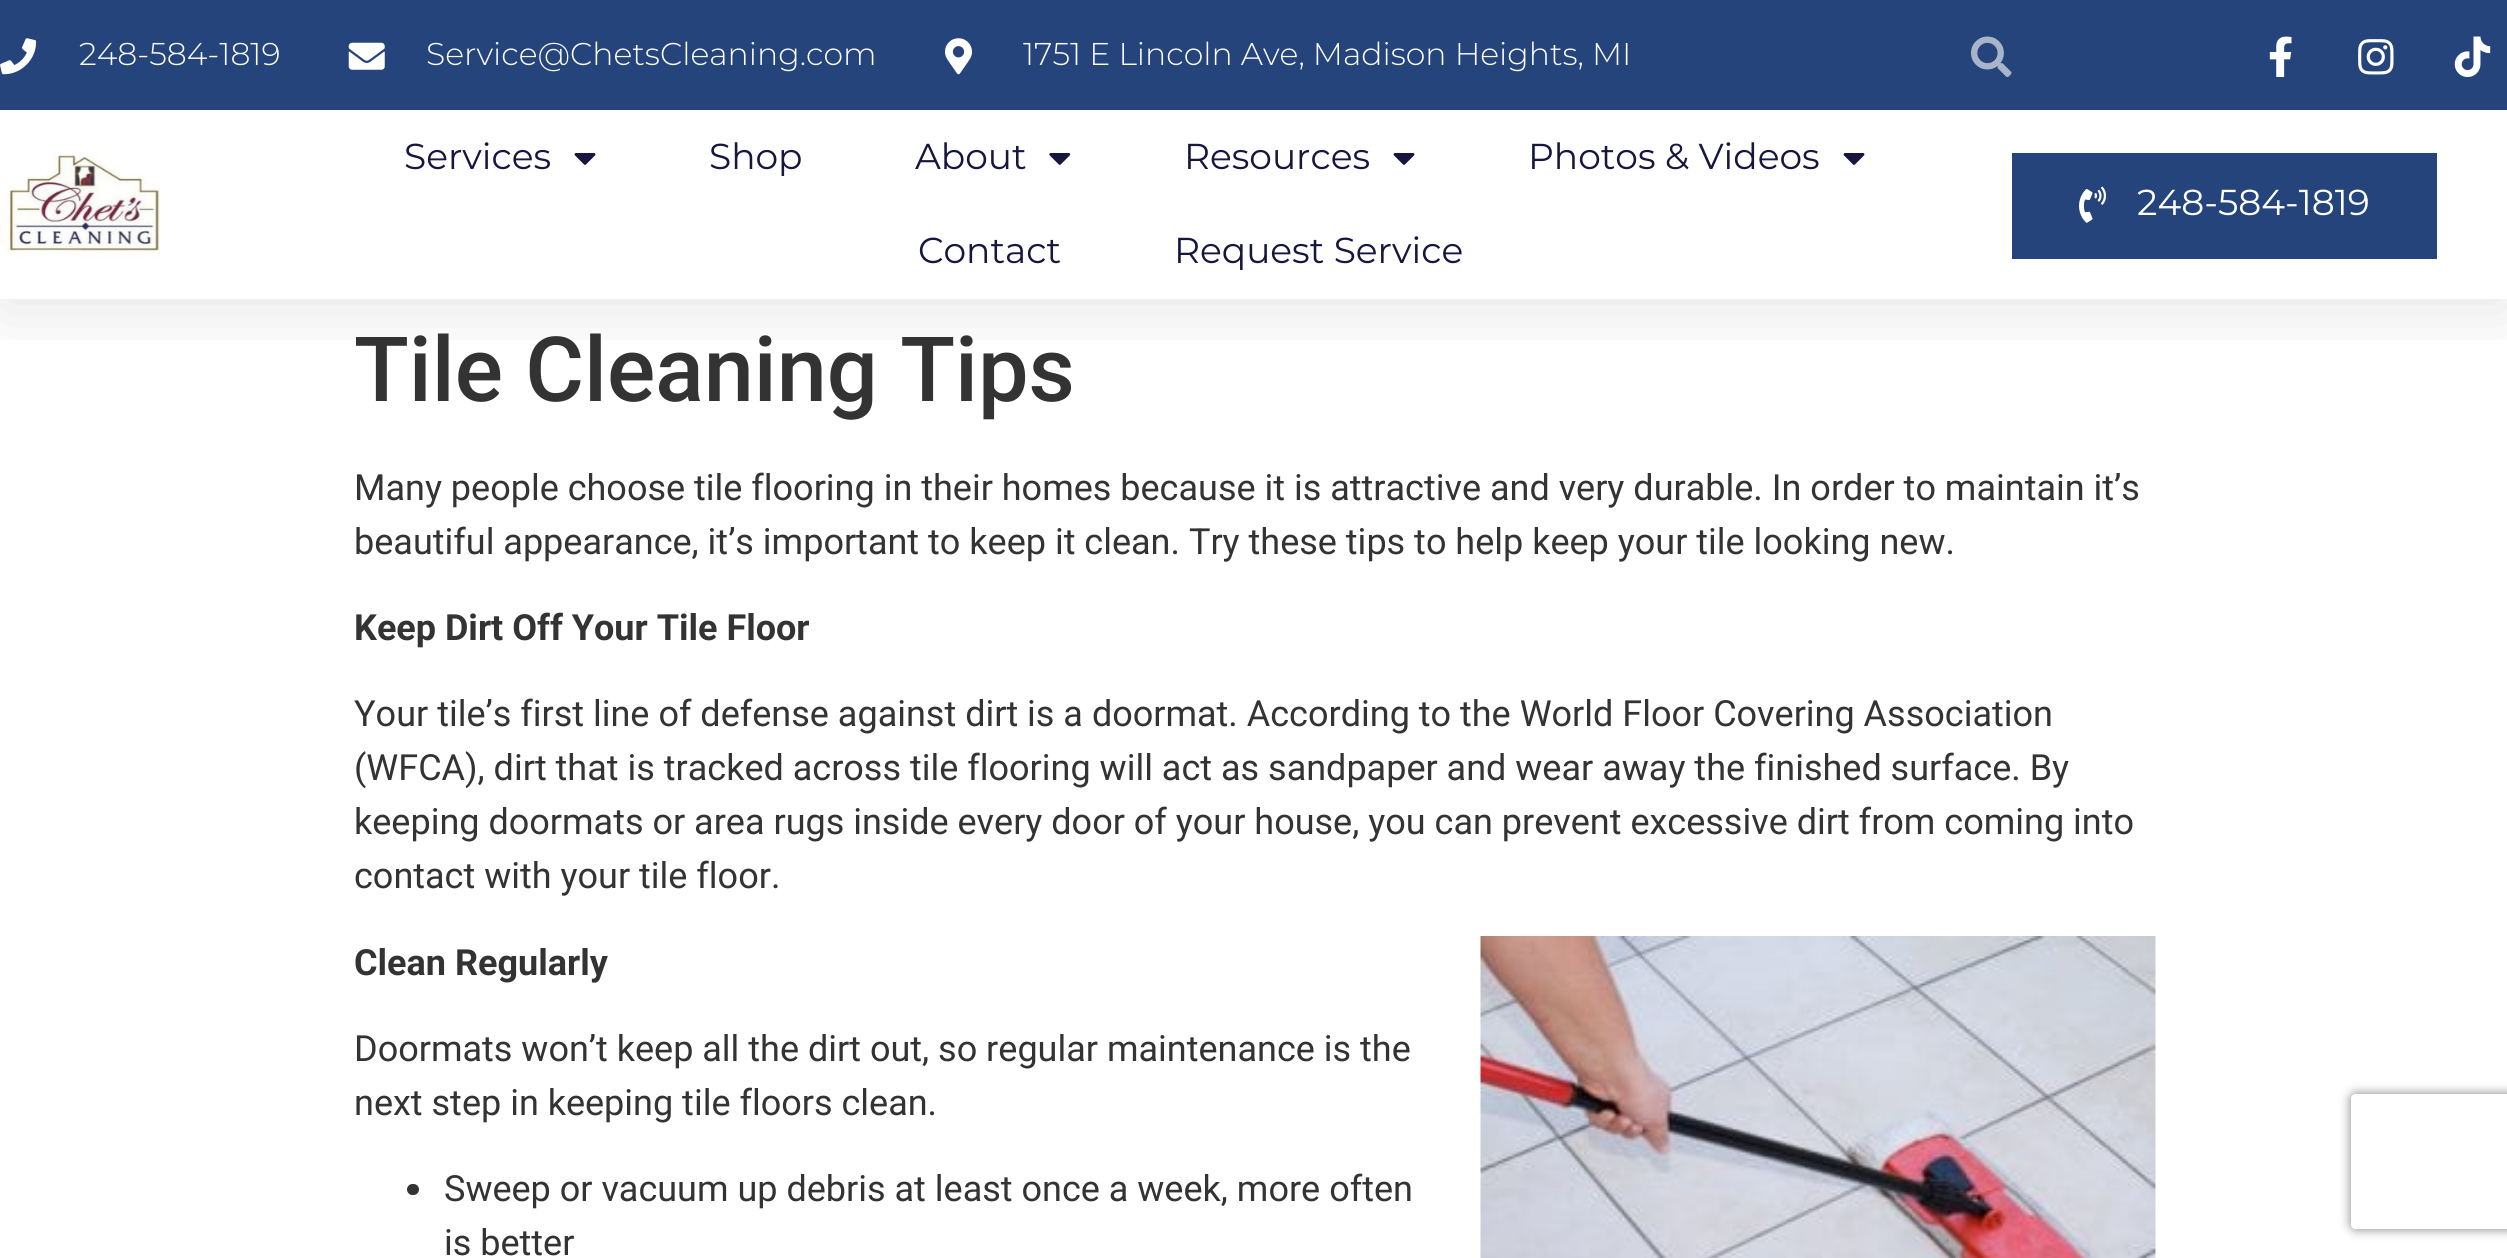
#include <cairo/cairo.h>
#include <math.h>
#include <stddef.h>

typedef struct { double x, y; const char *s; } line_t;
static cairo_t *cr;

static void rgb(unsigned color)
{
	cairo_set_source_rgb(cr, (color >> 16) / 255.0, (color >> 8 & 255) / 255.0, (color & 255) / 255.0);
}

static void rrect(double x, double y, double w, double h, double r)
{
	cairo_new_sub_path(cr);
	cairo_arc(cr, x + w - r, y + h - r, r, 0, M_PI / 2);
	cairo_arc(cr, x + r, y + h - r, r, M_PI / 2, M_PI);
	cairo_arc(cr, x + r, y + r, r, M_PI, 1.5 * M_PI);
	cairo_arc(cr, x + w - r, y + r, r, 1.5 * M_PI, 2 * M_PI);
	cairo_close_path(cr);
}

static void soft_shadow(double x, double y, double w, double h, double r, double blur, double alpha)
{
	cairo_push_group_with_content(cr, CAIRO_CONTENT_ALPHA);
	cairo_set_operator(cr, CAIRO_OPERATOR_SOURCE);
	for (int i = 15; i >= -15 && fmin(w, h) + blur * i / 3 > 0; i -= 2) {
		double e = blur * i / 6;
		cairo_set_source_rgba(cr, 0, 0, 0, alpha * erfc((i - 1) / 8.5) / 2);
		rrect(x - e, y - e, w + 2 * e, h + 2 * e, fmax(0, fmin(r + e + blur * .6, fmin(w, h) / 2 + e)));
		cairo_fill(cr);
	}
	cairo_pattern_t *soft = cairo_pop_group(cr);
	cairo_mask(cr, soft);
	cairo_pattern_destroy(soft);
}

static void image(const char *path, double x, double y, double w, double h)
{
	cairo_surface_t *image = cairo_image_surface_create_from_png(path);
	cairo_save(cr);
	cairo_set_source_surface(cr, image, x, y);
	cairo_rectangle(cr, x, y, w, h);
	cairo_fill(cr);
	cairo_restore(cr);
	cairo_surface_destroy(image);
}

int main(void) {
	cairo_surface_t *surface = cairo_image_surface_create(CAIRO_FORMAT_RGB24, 2507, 1258);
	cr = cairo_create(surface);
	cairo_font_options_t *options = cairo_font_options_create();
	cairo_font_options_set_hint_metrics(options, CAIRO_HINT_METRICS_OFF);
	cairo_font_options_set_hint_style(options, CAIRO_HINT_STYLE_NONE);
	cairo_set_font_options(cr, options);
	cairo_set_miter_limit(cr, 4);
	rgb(0xffffff);
	cairo_paint(cr);
	cairo_save(cr);
	cairo_rectangle(cr, 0, 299, 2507, 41);
	cairo_clip(cr);
	rgb(0x000000);
	soft_shadow(0, 11, 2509, 300, 0, 34, 0.1);
	cairo_restore(cr);
	rgb(0x24447b);
	cairo_rectangle(cr, 0, 0, 2507, 110);
	cairo_fill(cr);
	image("img/1.png", 0, 38, 37, 37);
	image("img/2.png", 348, 42, 37, 28);
	image("img/3.png", 945, 38, 27, 37);
	image("img/4.png", 1971, 36, 41, 41);
	image("img/5.png", 2269, 36, 23, 41);
	image("img/6.png", 2358, 39, 36, 36);
	image("img/7.png", 2454, 36, 37, 41);
	image("img/8.png", 0, 151, 160, 107);
	image("img/9.png", 574, 153, 22, 12);
	image("img/10.png", 1049, 153, 22, 12);
	image("img/9.png", 1393, 153, 22, 12);
	image("img/9.png", 1843, 153, 22, 12);
	cairo_rectangle(cr, 2012, 153, 425, 106);
	cairo_fill(cr);
	image("img/11.png", 2079, 186, 28, 37);
	image("img/12.png", 1480, 936, 676, 322);
	rgb(0x333333);
	rrect(407, 1184, 12, 11, 5.5);
	cairo_fill(cr);
	cairo_save(cr);
	cairo_set_fill_rule(cr, CAIRO_FILL_RULE_EVEN_ODD);
	cairo_new_path(cr);
	cairo_move_to(cr, 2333, 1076);
	cairo_line_to(cr, 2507, 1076);
	cairo_line_to(cr, 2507, 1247);
	cairo_line_to(cr, 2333, 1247);
	cairo_close_path(cr);
	cairo_move_to(cr, 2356, 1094);
	cairo_line_to(cr, 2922, 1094);
	cairo_curve_to(cr, 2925, 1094, 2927, 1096, 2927, 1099);
	cairo_line_to(cr, 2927, 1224);
	cairo_curve_to(cr, 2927, 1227, 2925, 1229, 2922, 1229);
	cairo_line_to(cr, 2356, 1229);
	cairo_curve_to(cr, 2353, 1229, 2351, 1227, 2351, 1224);
	cairo_line_to(cr, 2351, 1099);
	cairo_curve_to(cr, 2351, 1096, 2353, 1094, 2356, 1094);
	cairo_close_path(cr);
	cairo_clip(cr);
	rgb(0x808080);
	soft_shadow(2351, 1094, 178, 135, 5, 5.5, 1);
	cairo_restore(cr);
	cairo_select_font_face(cr, "Montserrat Light", CAIRO_FONT_SLANT_NORMAL, CAIRO_FONT_WEIGHT_NORMAL);
	cairo_set_font_size(cr, 31.5);
	rgb(0xffffff);
	{
		static const line_t items[] = {
			{79, 65, "248-584-1819"},
			{426, 65, "Service@ChetsCleaning.com"},
			{1023, 65, "1751 E Lincoln Ave, Madison Heights, MI"},
		};
		for (size_t i = 0; i < sizeof items / sizeof *items; i++) {
			cairo_move_to(cr, items[i].x, items[i].y);
			cairo_show_text(cr, items[i].s);
		}
	}
	cairo_select_font_face(cr, "Montserrat", CAIRO_FONT_SLANT_NORMAL, CAIRO_FONT_WEIGHT_NORMAL);
	cairo_set_font_size(cr, 36);
	rgb(0x16163f);
	{
		static const line_t items[] = {
			{404, 169, "Services"},
			{709, 169, "Shop"},
			{915, 169, "About"},
			{1184, 169, "Resources"},
			{1528, 169, "Photos & Videos"},
			{918, 263, "Contact"},
			{1174, 263, "Request Service"},
		};
		for (size_t i = 0; i < sizeof items / sizeof *items; i++) {
			cairo_move_to(cr, items[i].x, items[i].y);
			cairo_show_text(cr, items[i].s);
		}
	}
	rgb(0xffffff);
	cairo_move_to(cr, 2137, 215);
	cairo_show_text(cr, "248-584-1819");
	cairo_select_font_face(cr, "Roboto Medium", CAIRO_FONT_SLANT_NORMAL, CAIRO_FONT_WEIGHT_NORMAL);
	cairo_set_font_size(cr, 90);
	rgb(0x333333);
	cairo_move_to(cr, 354, 401);
	cairo_show_text(cr, "Tile Cleaning Tips");
	cairo_select_font_face(cr, "Roboto", CAIRO_FONT_SLANT_NORMAL, CAIRO_FONT_WEIGHT_NORMAL);
	cairo_set_font_size(cr, 36);
	cairo_move_to(cr, 354, 500);
	cairo_show_text(cr, "Many people choose tile flooring in their homes because it is attractive and very durable. In order to maintain it’s");
	cairo_move_to(cr, 354, 554);
	cairo_show_text(cr, "beautiful appearance, it’s important to keep it clean. Try these tips to help keep your tile looking new.");
	cairo_select_font_face(cr, "Roboto", CAIRO_FONT_SLANT_NORMAL, CAIRO_FONT_WEIGHT_BOLD);
	cairo_move_to(cr, 354, 640);
	cairo_show_text(cr, "Keep Dirt Off Your Tile Floor");
	cairo_select_font_face(cr, "Roboto", CAIRO_FONT_SLANT_NORMAL, CAIRO_FONT_WEIGHT_NORMAL);
	{
		static const line_t items[] = {
			{354, 726, "Your tile’s first line of defense against dirt is a doormat. According to the World Floor Covering Association"},
			{354, 780, "(WFCA), dirt that is tracked across tile flooring will act as sandpaper and wear away the finished surface. By"},
			{354, 834, "keeping doormats or area rugs inside every door of your house, you can prevent excessive dirt from coming into"},
			{354, 888, "contact with your tile floor."},
		};
		for (size_t i = 0; i < sizeof items / sizeof *items; i++) {
			cairo_move_to(cr, items[i].x, items[i].y);
			cairo_show_text(cr, items[i].s);
		}
	}
	cairo_select_font_face(cr, "Roboto", CAIRO_FONT_SLANT_NORMAL, CAIRO_FONT_WEIGHT_BOLD);
	cairo_move_to(cr, 354, 975);
	cairo_show_text(cr, "Clean Regularly");
	cairo_select_font_face(cr, "Roboto", CAIRO_FONT_SLANT_NORMAL, CAIRO_FONT_WEIGHT_NORMAL);
	{
		static const line_t items[] = {
			{354, 1061, "Doormats won’t keep all the dirt out, so regular maintenance is the"},
			{354, 1115, "next step in keeping tile floors clean."},
			{444, 1201, "Sweep or vacuum up debris at least once a week, more often"},
			{444, 1255, "is better"},
		};
		for (size_t i = 0; i < sizeof items / sizeof *items; i++) {
			cairo_move_to(cr, items[i].x, items[i].y);
			cairo_show_text(cr, items[i].s);
		}
	}
	cairo_surface_write_to_png(surface, "page.png");
	cairo_font_options_destroy(options);
	cairo_destroy(cr);
	cairo_surface_destroy(surface);
	return 0;
}
